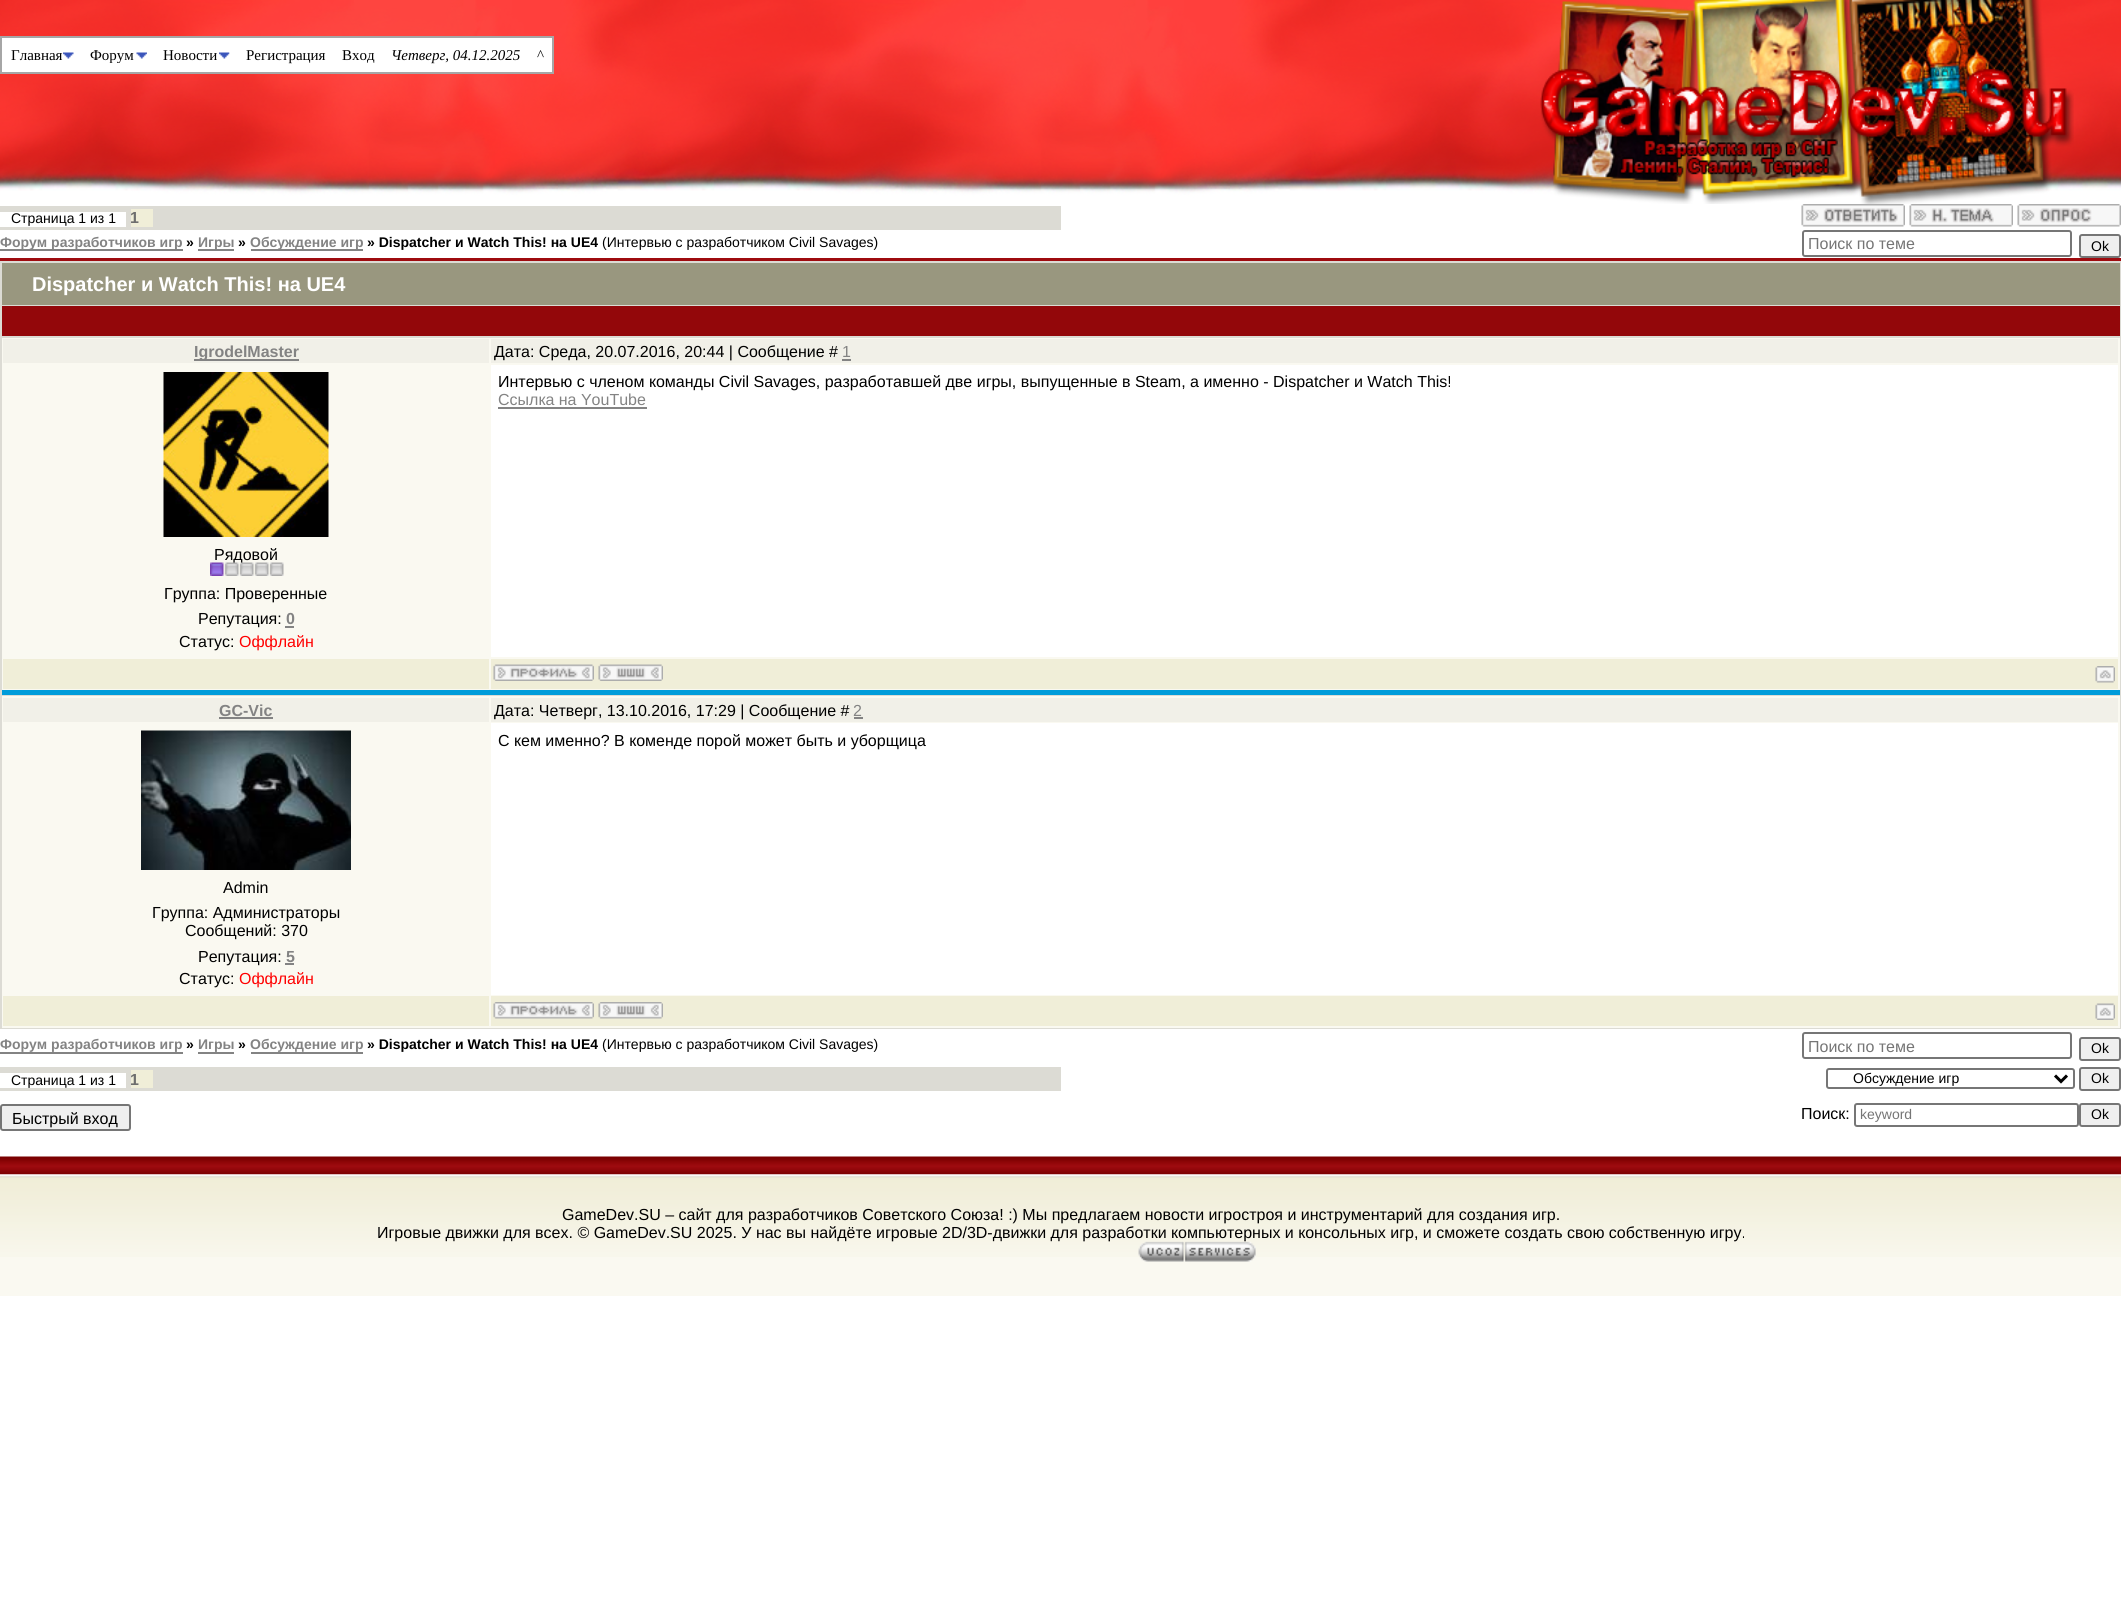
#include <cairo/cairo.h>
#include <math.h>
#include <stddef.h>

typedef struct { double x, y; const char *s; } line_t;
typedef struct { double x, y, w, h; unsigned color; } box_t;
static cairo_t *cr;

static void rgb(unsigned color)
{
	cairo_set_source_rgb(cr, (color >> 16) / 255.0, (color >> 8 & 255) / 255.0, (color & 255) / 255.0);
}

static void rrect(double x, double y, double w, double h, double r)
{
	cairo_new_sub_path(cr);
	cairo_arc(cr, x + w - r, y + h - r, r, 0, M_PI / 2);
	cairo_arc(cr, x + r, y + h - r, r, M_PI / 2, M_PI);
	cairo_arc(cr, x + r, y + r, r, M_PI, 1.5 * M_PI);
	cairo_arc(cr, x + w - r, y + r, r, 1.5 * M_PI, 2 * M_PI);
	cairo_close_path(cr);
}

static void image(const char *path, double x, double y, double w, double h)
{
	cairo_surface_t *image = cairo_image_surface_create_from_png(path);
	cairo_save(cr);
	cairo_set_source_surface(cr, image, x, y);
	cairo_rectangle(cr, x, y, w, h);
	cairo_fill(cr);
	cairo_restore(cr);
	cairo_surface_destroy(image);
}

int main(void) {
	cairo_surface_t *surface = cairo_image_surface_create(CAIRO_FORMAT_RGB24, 2121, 1603);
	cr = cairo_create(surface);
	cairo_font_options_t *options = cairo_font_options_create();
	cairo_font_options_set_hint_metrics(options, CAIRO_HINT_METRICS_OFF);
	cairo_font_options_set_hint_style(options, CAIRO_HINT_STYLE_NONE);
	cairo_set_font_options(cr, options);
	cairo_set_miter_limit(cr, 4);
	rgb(0xffffff);
	cairo_paint(cr);
	image("img/1.png", 0, 0, 2121, 204);
	rgb(0xffffff);
	cairo_rectangle(cr, 1, 37, 552, 36);
	cairo_fill_preserve(cr);
	rgb(0xa6a6a6);
	cairo_stroke(cr);
	image("img/2.png", 63, 52, 11, 7);
	image("img/3.png", 136, 52, 11, 7);
	image("img/4.png", 219, 52, 11, 7);
	image("img/5.png", 1540, 0, 534, 204);
	{
		static const box_t items[] = {
			{0, 206, 1061, 24, 0xdcdbd4},
			{0, 212, 126, 15, 0xffffff},
			{131, 209, 22, 18, 0xf0eed8},
		};
		for (size_t i = 0; i < sizeof items / sizeof *items; i++) {
			rgb(items[i].color);
			cairo_rectangle(cr, items[i].x, items[i].y, items[i].w, items[i].h);
			cairo_fill(cr);
		}
	}
	image("img/6.png", 1801, 204, 104, 23);
	image("img/7.png", 1909, 204, 104, 23);
	image("img/8.png", 2017, 204, 104, 23);
	{
		static const box_t items[] = {
			{0, 249, 183, 2, 0x838383},
			{198, 249, 36, 2, 0x838383},
			{251, 249, 112, 2, 0x838383},
		};
		for (size_t i = 0; i < sizeof items / sizeof *items; i++) {
			rgb(items[i].color);
			cairo_rectangle(cr, items[i].x, items[i].y, items[i].w, items[i].h);
			cairo_fill(cr);
		}
	}
	rrect(1803, 231, 268, 25, 2);
	rgb(0x767676);
	cairo_stroke(cr);
	rgb(0xefefef);
	rrect(2080, 235, 40, 22, 2);
	cairo_fill_preserve(cr);
	rgb(0x767676);
	cairo_stroke(cr);
	{
		static const box_t items[] = {
			{0, 261, 2121, 768, 0xdcdbd4},
			{0, 258, 2121, 3, 0x9e0b0f},
			{2, 263, 2118, 42, 0x99977f},
			{2, 306, 2118, 30, 0x93070a},
			{2, 338, 2118, 352, 0xfaf9f1},
			{2, 690, 2118, 5, 0x009cda},
			{3, 339, 486, 24, 0xf1f0e8},
			{194, 359, 105, 2, 0x838383},
			{491, 339, 1627, 24, 0xf1f0e8},
			{842, 359, 9, 2, 0x838383},
			{491, 365, 1627, 292, 0xffffff},
			{498, 407, 149, 2, 0x838383},
		};
		for (size_t i = 0; i < sizeof items / sizeof *items; i++) {
			rgb(items[i].color);
			cairo_rectangle(cr, items[i].x, items[i].y, items[i].w, items[i].h);
			cairo_fill(cr);
		}
	}
	image("img/9.png", 163, 372, 166, 165);
	{
		static const box_t items[] = {
			{285, 626, 9, 2, 0x838383},
			{3, 659, 486, 30, 0xf0eed8},
			{491, 659, 1627, 30, 0xf0eed8},
		};
		for (size_t i = 0; i < sizeof items / sizeof *items; i++) {
			rgb(items[i].color);
			cairo_rectangle(cr, items[i].x, items[i].y, items[i].w, items[i].h);
			cairo_fill(cr);
		}
	}
	image("img/11.png", 493, 664, 101, 17);
	image("img/12.png", 598, 664, 65, 17);
	image("img/13.png", 2095, 666, 20, 17);
	{
		static const box_t items[] = {
			{2, 696, 2118, 332, 0xfaf9f1},
			{3, 698, 486, 24, 0xf1f0e8},
			{219, 717, 54, 2, 0x838383},
			{491, 698, 1627, 24, 0xf1f0e8},
			{854, 717, 9, 2, 0x838383},
			{491, 723, 1627, 272, 0xffffff},
		};
		for (size_t i = 0; i < sizeof items / sizeof *items; i++) {
			rgb(items[i].color);
			cairo_rectangle(cr, items[i].x, items[i].y, items[i].w, items[i].h);
			cairo_fill(cr);
		}
	}
	image("img/14.png", 141, 730, 210, 140);
	{
		static const box_t items[] = {
			{285, 963, 9, 2, 0x838383},
			{3, 996, 486, 30, 0xf0eed8},
			{491, 996, 1627, 30, 0xf0eed8},
		};
		for (size_t i = 0; i < sizeof items / sizeof *items; i++) {
			rgb(items[i].color);
			cairo_rectangle(cr, items[i].x, items[i].y, items[i].w, items[i].h);
			cairo_fill(cr);
		}
	}
	image("img/15.png", 493, 1002, 101, 17);
	image("img/16.png", 598, 1002, 65, 17);
	image("img/17.png", 2095, 1003, 20, 17);
	{
		static const box_t items[] = {
			{0, 1052, 183, 2, 0x838383},
			{198, 1052, 36, 2, 0x838383},
			{251, 1052, 112, 2, 0x838383},
		};
		for (size_t i = 0; i < sizeof items / sizeof *items; i++) {
			rgb(items[i].color);
			cairo_rectangle(cr, items[i].x, items[i].y, items[i].w, items[i].h);
			cairo_fill(cr);
		}
	}
	rrect(1803, 1033, 268, 25, 2);
	rgb(0x767676);
	cairo_stroke(cr);
	rgb(0xefefef);
	rrect(2080, 1038, 40, 22, 2);
	cairo_fill_preserve(cr);
	rgb(0x767676);
	cairo_stroke(cr);
	{
		static const box_t items[] = {
			{0, 1067, 1061, 24, 0xdcdbd4},
			{0, 1073, 126, 15, 0xffffff},
			{131, 1070, 22, 18, 0xf0eed8},
		};
		for (size_t i = 0; i < sizeof items / sizeof *items; i++) {
			rgb(items[i].color);
			cairo_rectangle(cr, items[i].x, items[i].y, items[i].w, items[i].h);
			cairo_fill(cr);
		}
	}
	rrect(1827, 1069, 247, 19, 2);
	rgb(0x767676);
	cairo_stroke(cr);
	cairo_new_path(cr);
	cairo_move_to(cr, 2055, 1075.5);
	cairo_line_to(cr, 2061, 1081.5);
	cairo_line_to(cr, 2067, 1075.5);
	rgb(0x000000);
	cairo_set_line_width(cr, 3);
	cairo_stroke(cr);
	rgb(0xefefef);
	rrect(2080, 1068, 40, 22, 2);
	cairo_fill_preserve(cr);
	rgb(0x767676);
	cairo_set_line_width(cr, 2);
	cairo_stroke(cr);
	rgb(0xefefef);
	rrect(1, 1105, 129, 25, 2);
	cairo_fill_preserve(cr);
	rgb(0x767676);
	cairo_stroke(cr);
	rrect(1855, 1104, 223, 22, 2);
	cairo_stroke(cr);
	rgb(0xefefef);
	rrect(2080, 1104, 40, 22, 2);
	cairo_fill_preserve(cr);
	rgb(0x767676);
	cairo_stroke(cr);
	image("img/18.png", 0, 1156, 2121, 19);
	rgb(0xfaf9f1);
	cairo_rectangle(cr, 0, 1257, 2121, 39);
	cairo_fill(cr);
	image("img/19.png", 0, 1174, 2121, 83);
	cairo_select_font_face(cr, "Liberation Serif", CAIRO_FONT_SLANT_NORMAL, CAIRO_FONT_WEIGHT_NORMAL);
	cairo_set_font_size(cr, 15);
	rgb(0x000000);
	cairo_move_to(cr, 11, 60);
	cairo_show_text(cr, "Главная");
	cairo_save(cr);
	cairo_rectangle(cr, 90, 47, 57, 16);
	cairo_clip(cr);
	cairo_move_to(cr, 90, 60);
	cairo_show_text(cr, "Форум");
	cairo_restore(cr);
	{
		static const line_t items[] = {
			{163, 60, "Новости"},
			{246, 60, "Регистрация"},
			{342, 60, "Вход"},
		};
		for (size_t i = 0; i < sizeof items / sizeof *items; i++) {
			cairo_move_to(cr, items[i].x, items[i].y);
			cairo_show_text(cr, items[i].s);
		}
	}
	cairo_select_font_face(cr, "Liberation Serif", CAIRO_FONT_SLANT_ITALIC, CAIRO_FONT_WEIGHT_NORMAL);
	cairo_move_to(cr, 391, 60);
	cairo_show_text(cr, "Четверг, 04.12.2025");
	cairo_select_font_face(cr, "Liberation Serif", CAIRO_FONT_SLANT_NORMAL, CAIRO_FONT_WEIGHT_NORMAL);
	cairo_move_to(cr, 537, 60);
	cairo_show_text(cr, "^");
	cairo_select_font_face(cr, "Liberation Sans", CAIRO_FONT_SLANT_NORMAL, CAIRO_FONT_WEIGHT_NORMAL);
	cairo_set_font_size(cr, 14);
	cairo_move_to(cr, 11, 223);
	cairo_show_text(cr, "Страница 1 из 1");
	cairo_select_font_face(cr, "Liberation Sans", CAIRO_FONT_SLANT_NORMAL, CAIRO_FONT_WEIGHT_BOLD);
	cairo_set_font_size(cr, 16);
	rgb(0x6e6e6e);
	cairo_move_to(cr, 130, 223);
	cairo_show_text(cr, "1");
	cairo_set_font_size(cr, 14);
	rgb(0x838383);
	cairo_move_to(cr, 0, 247);
	cairo_show_text(cr, "Форум разработчиков игр");
	rgb(0x000000);
	cairo_move_to(cr, 186, 247);
	cairo_show_text(cr, "»");
	rgb(0x838383);
	cairo_move_to(cr, 198, 247);
	cairo_show_text(cr, "Игры");
	rgb(0x000000);
	cairo_move_to(cr, 238, 247);
	cairo_show_text(cr, "»");
	rgb(0x838383);
	cairo_move_to(cr, 250, 247);
	cairo_show_text(cr, "Обсуждение игр");
	rgb(0x000000);
	cairo_move_to(cr, 367, 247);
	cairo_show_text(cr, "» Dispatcher и Watch This! на UE4");
	cairo_select_font_face(cr, "Liberation Sans", CAIRO_FONT_SLANT_NORMAL, CAIRO_FONT_WEIGHT_NORMAL);
	cairo_move_to(cr, 602, 247);
	cairo_show_text(cr, "(Интервью с разработчиком Civil Savages)");
	cairo_set_font_size(cr, 16);
	rgb(0x757575);
	cairo_move_to(cr, 1808, 249);
	cairo_show_text(cr, "Поиск по теме");
	cairo_set_font_size(cr, 14);
	rgb(0x000000);
	cairo_move_to(cr, 2091, 251);
	cairo_show_text(cr, "Ok");
	cairo_select_font_face(cr, "Liberation Sans", CAIRO_FONT_SLANT_NORMAL, CAIRO_FONT_WEIGHT_BOLD);
	cairo_set_font_size(cr, 20);
	rgb(0xffffff);
	cairo_move_to(cr, 32, 291);
	cairo_show_text(cr, "Dispatcher и Watch This! на UE4");
	cairo_set_font_size(cr, 16);
	rgb(0x838383);
	cairo_move_to(cr, 194, 357);
	cairo_show_text(cr, "IgrodelMaster");
	cairo_select_font_face(cr, "Liberation Sans", CAIRO_FONT_SLANT_NORMAL, CAIRO_FONT_WEIGHT_NORMAL);
	rgb(0x000000);
	cairo_move_to(cr, 494, 357);
	cairo_show_text(cr, "Дата: Среда, 20.07.2016, 20:44 | Сообщение #");
	rgb(0x838383);
	cairo_move_to(cr, 842, 357);
	cairo_show_text(cr, "1");
	rgb(0x000000);
	cairo_move_to(cr, 498, 387);
	cairo_show_text(cr, "Интервью с членом команды Civil Savages, разработавшей две игры, выпущенные в Steam, а именно - Dispatcher и Watch This!");
	rgb(0x838383);
	cairo_move_to(cr, 498, 405);
	cairo_show_text(cr, "Ссылка на YouTube");
	rgb(0x000000);
	cairo_move_to(cr, 214, 560);
	cairo_show_text(cr, "Рядовой");
	image("img/10.png", 210, 562, 74, 14);
	cairo_move_to(cr, 164, 599);
	cairo_show_text(cr, "Группа: Проверенные");
	cairo_move_to(cr, 198, 624);
	cairo_show_text(cr, "Репутация:");
	cairo_select_font_face(cr, "Liberation Sans", CAIRO_FONT_SLANT_NORMAL, CAIRO_FONT_WEIGHT_BOLD);
	rgb(0x838383);
	cairo_move_to(cr, 286, 624);
	cairo_show_text(cr, "0");
	cairo_select_font_face(cr, "Liberation Sans", CAIRO_FONT_SLANT_NORMAL, CAIRO_FONT_WEIGHT_NORMAL);
	rgb(0x000000);
	cairo_move_to(cr, 179, 647);
	cairo_show_text(cr, "Статус:");
	rgb(0xff0000);
	cairo_move_to(cr, 239, 647);
	cairo_show_text(cr, "Оффлайн");
	cairo_select_font_face(cr, "Liberation Sans", CAIRO_FONT_SLANT_NORMAL, CAIRO_FONT_WEIGHT_BOLD);
	rgb(0x838383);
	cairo_move_to(cr, 219, 716);
	cairo_show_text(cr, "GC-Vic");
	cairo_select_font_face(cr, "Liberation Sans", CAIRO_FONT_SLANT_NORMAL, CAIRO_FONT_WEIGHT_NORMAL);
	rgb(0x000000);
	cairo_move_to(cr, 494, 716);
	cairo_show_text(cr, "Дата: Четверг, 13.10.2016, 17:29 | Сообщение #");
	rgb(0x838383);
	cairo_move_to(cr, 853, 716);
	cairo_show_text(cr, "2");
	rgb(0x000000);
	{
		static const line_t items[] = {
			{498, 746, "С кем именно? В коменде порой может быть и уборщица"},
			{223, 893, "Admin"},
			{152, 918, "Группа: Администраторы"},
			{185, 936, "Сообщений: 370"},
			{198, 962, "Репутация:"},
		};
		for (size_t i = 0; i < sizeof items / sizeof *items; i++) {
			cairo_move_to(cr, items[i].x, items[i].y);
			cairo_show_text(cr, items[i].s);
		}
	}
	cairo_select_font_face(cr, "Liberation Sans", CAIRO_FONT_SLANT_NORMAL, CAIRO_FONT_WEIGHT_BOLD);
	rgb(0x838383);
	cairo_move_to(cr, 286, 962);
	cairo_show_text(cr, "5");
	cairo_select_font_face(cr, "Liberation Sans", CAIRO_FONT_SLANT_NORMAL, CAIRO_FONT_WEIGHT_NORMAL);
	rgb(0x000000);
	cairo_move_to(cr, 179, 984);
	cairo_show_text(cr, "Статус:");
	rgb(0xff0000);
	cairo_move_to(cr, 239, 984);
	cairo_show_text(cr, "Оффлайн");
	cairo_select_font_face(cr, "Liberation Sans", CAIRO_FONT_SLANT_NORMAL, CAIRO_FONT_WEIGHT_BOLD);
	cairo_set_font_size(cr, 14);
	rgb(0x838383);
	cairo_move_to(cr, 0, 1049);
	cairo_show_text(cr, "Форум разработчиков игр");
	rgb(0x000000);
	cairo_move_to(cr, 186, 1049);
	cairo_show_text(cr, "»");
	rgb(0x838383);
	cairo_move_to(cr, 198, 1049);
	cairo_show_text(cr, "Игры");
	rgb(0x000000);
	cairo_move_to(cr, 238, 1049);
	cairo_show_text(cr, "»");
	rgb(0x838383);
	cairo_move_to(cr, 250, 1049);
	cairo_show_text(cr, "Обсуждение игр");
	rgb(0x000000);
	cairo_move_to(cr, 367, 1049);
	cairo_show_text(cr, "» Dispatcher и Watch This! на UE4");
	cairo_select_font_face(cr, "Liberation Sans", CAIRO_FONT_SLANT_NORMAL, CAIRO_FONT_WEIGHT_NORMAL);
	cairo_move_to(cr, 602, 1049);
	cairo_show_text(cr, "(Интервью с разработчиком Civil Savages)");
	cairo_set_font_size(cr, 16);
	rgb(0x757575);
	cairo_move_to(cr, 1808, 1052);
	cairo_show_text(cr, "Поиск по теме");
	cairo_set_font_size(cr, 14);
	rgb(0x000000);
	cairo_move_to(cr, 2091, 1053);
	cairo_show_text(cr, "Ok");
	cairo_move_to(cr, 11, 1085);
	cairo_show_text(cr, "Страница 1 из 1");
	cairo_select_font_face(cr, "Liberation Sans", CAIRO_FONT_SLANT_NORMAL, CAIRO_FONT_WEIGHT_BOLD);
	cairo_set_font_size(cr, 16);
	rgb(0x6e6e6e);
	cairo_move_to(cr, 130, 1085);
	cairo_show_text(cr, "1");
	cairo_select_font_face(cr, "Liberation Sans", CAIRO_FONT_SLANT_NORMAL, CAIRO_FONT_WEIGHT_NORMAL);
	cairo_set_font_size(cr, 14);
	rgb(0x000000);
	cairo_move_to(cr, 1853, 1083);
	cairo_show_text(cr, "Обсуждение игр");
	cairo_move_to(cr, 2091, 1083);
	cairo_show_text(cr, "Ok");
	cairo_set_font_size(cr, 16);
	cairo_move_to(cr, 12, 1124);
	cairo_show_text(cr, "Быстрый вход");
	cairo_move_to(cr, 1801, 1119);
	cairo_show_text(cr, "Поиск:");
	cairo_set_font_size(cr, 14);
	rgb(0x757575);
	cairo_move_to(cr, 1860, 1119);
	cairo_show_text(cr, "keyword");
	rgb(0x000000);
	cairo_move_to(cr, 2091, 1119);
	cairo_show_text(cr, "Ok");
	cairo_set_font_size(cr, 16);
	cairo_move_to(cr, 562, 1220);
	cairo_show_text(cr, "GameDev.SU – сайт для разработчиков Советского Союза! :) Мы предлагаем новости игростроя и инструментарий для создания игр.");
	cairo_move_to(cr, 377, 1238);
	cairo_show_text(cr, "Игровые движки для всех. © GameDev.SU 2025. У нас вы найдёте игровые 2D/3D-движки для разработки компьютерных и консольных игр, и сможете создать свою собственную игру.");
	image("img/20.png", 1138, 1241, 118, 21);
	cairo_surface_write_to_png(surface, "page.png");
	cairo_font_options_destroy(options);
	cairo_destroy(cr);
	cairo_surface_destroy(surface);
	return 0;
}
